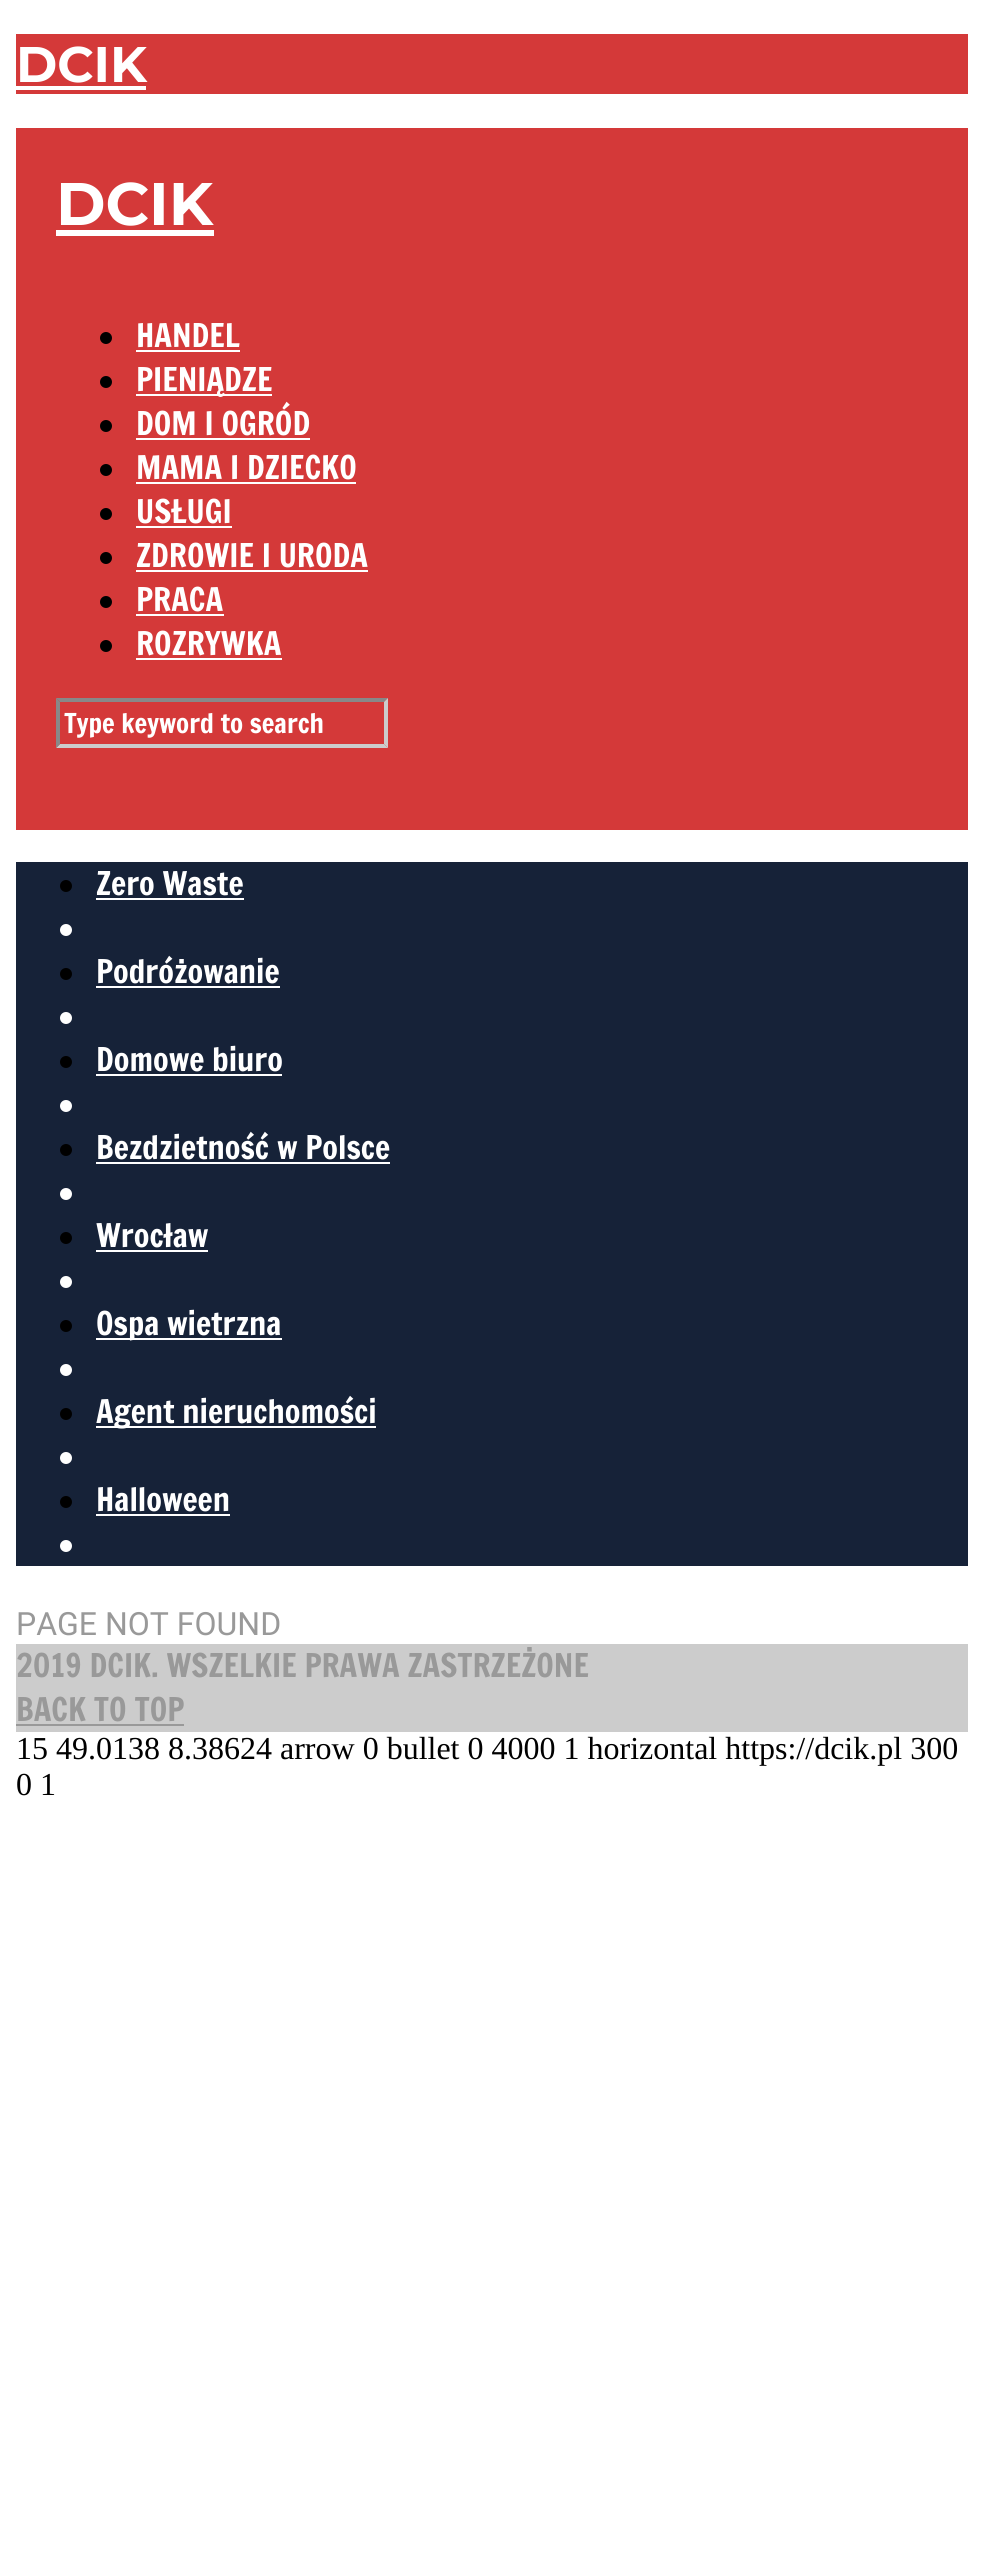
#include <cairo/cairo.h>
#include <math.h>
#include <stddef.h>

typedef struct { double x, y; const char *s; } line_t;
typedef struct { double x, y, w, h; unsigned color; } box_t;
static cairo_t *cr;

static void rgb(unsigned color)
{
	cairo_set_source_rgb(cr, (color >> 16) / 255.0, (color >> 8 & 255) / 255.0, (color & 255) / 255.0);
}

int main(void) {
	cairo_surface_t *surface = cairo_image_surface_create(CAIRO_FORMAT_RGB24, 983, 2575);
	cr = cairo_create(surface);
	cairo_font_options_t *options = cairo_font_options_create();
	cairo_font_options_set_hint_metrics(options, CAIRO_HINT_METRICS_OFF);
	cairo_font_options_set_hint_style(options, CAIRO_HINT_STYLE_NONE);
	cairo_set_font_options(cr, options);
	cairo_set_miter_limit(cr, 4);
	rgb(0xffffff);
	cairo_paint(cr);
	{
		static const box_t items[] = {
			{16, 34, 952, 60, 0xd43939},
			{16, 86, 130, 4, 0xffffff},
			{16, 128, 952, 702, 0xd43939},
			{56, 230, 158, 6, 0xffffff},
		};
		for (size_t i = 0; i < sizeof items / sizeof *items; i++) {
			rgb(items[i].color);
			cairo_rectangle(cr, items[i].x, items[i].y, items[i].w, items[i].h);
			cairo_fill(cr);
		}
	}
	rgb(0x000000);
	cairo_arc(cr, 106, 338, 6, 0, 2 * M_PI);
	cairo_fill(cr);
	rgb(0xffffff);
	cairo_rectangle(cr, 136, 350, 104, 2);
	cairo_fill(cr);
	rgb(0x000000);
	cairo_arc(cr, 106, 382, 6, 0, 2 * M_PI);
	cairo_fill(cr);
	rgb(0xffffff);
	cairo_rectangle(cr, 136, 394, 136, 2);
	cairo_fill(cr);
	rgb(0x000000);
	cairo_arc(cr, 106, 426, 6, 0, 2 * M_PI);
	cairo_fill(cr);
	rgb(0xffffff);
	cairo_rectangle(cr, 136, 438, 174, 2);
	cairo_fill(cr);
	rgb(0x000000);
	cairo_arc(cr, 106, 470, 6, 0, 2 * M_PI);
	cairo_fill(cr);
	rgb(0xffffff);
	cairo_rectangle(cr, 136, 482, 220, 2);
	cairo_fill(cr);
	rgb(0x000000);
	cairo_arc(cr, 106, 514, 6, 0, 2 * M_PI);
	cairo_fill(cr);
	rgb(0xffffff);
	cairo_rectangle(cr, 136, 526, 96, 2);
	cairo_fill(cr);
	rgb(0x000000);
	cairo_arc(cr, 106, 558, 6, 0, 2 * M_PI);
	cairo_fill(cr);
	rgb(0xffffff);
	cairo_rectangle(cr, 136, 570, 232, 2);
	cairo_fill(cr);
	rgb(0x000000);
	cairo_arc(cr, 106, 602, 6, 0, 2 * M_PI);
	cairo_fill(cr);
	rgb(0xffffff);
	cairo_rectangle(cr, 136, 614, 88, 2);
	cairo_fill(cr);
	rgb(0x000000);
	cairo_arc(cr, 106, 646, 6, 0, 2 * M_PI);
	cairo_fill(cr);
	rgb(0xffffff);
	cairo_rectangle(cr, 136, 658, 146, 2);
	cairo_fill(cr);
	rgb(0x888888);
	cairo_new_path(cr);
	cairo_move_to(cr, 56, 698);
	cairo_line_to(cr, 388, 698);
	cairo_line_to(cr, 384, 702);
	cairo_line_to(cr, 60, 702);
	cairo_close_path(cr);
	cairo_fill(cr);
	rgb(0xcccccc);
	cairo_new_path(cr);
	cairo_move_to(cr, 388, 698);
	cairo_line_to(cr, 388, 748);
	cairo_line_to(cr, 384, 744);
	cairo_line_to(cr, 384, 702);
	cairo_close_path(cr);
	cairo_fill(cr);
	cairo_new_path(cr);
	cairo_move_to(cr, 388, 748);
	cairo_line_to(cr, 56, 748);
	cairo_line_to(cr, 60, 744);
	cairo_line_to(cr, 384, 744);
	cairo_close_path(cr);
	cairo_fill(cr);
	rgb(0x888888);
	cairo_new_path(cr);
	cairo_move_to(cr, 56, 748);
	cairo_line_to(cr, 56, 698);
	cairo_line_to(cr, 60, 702);
	cairo_line_to(cr, 60, 744);
	cairo_close_path(cr);
	cairo_fill(cr);
	rgb(0x162238);
	cairo_rectangle(cr, 16, 862, 952, 704);
	cairo_fill(cr);
	rgb(0x000000);
	cairo_arc(cr, 66, 886, 6, 0, 2 * M_PI);
	cairo_fill(cr);
	rgb(0xffffff);
	cairo_rectangle(cr, 96, 898, 148, 2);
	cairo_fill(cr);
	cairo_arc(cr, 66, 930, 6, 0, 2 * M_PI);
	cairo_fill(cr);
	rgb(0x000000);
	cairo_arc(cr, 66, 974, 6, 0, 2 * M_PI);
	cairo_fill(cr);
	rgb(0xffffff);
	cairo_rectangle(cr, 96, 986, 184, 2);
	cairo_fill(cr);
	cairo_arc(cr, 66, 1018, 6, 0, 2 * M_PI);
	cairo_fill(cr);
	rgb(0x000000);
	cairo_arc(cr, 66, 1062, 6, 0, 2 * M_PI);
	cairo_fill(cr);
	rgb(0xffffff);
	cairo_rectangle(cr, 96, 1074, 186, 2);
	cairo_fill(cr);
	cairo_arc(cr, 66, 1106, 6, 0, 2 * M_PI);
	cairo_fill(cr);
	rgb(0x000000);
	cairo_arc(cr, 66, 1150, 6, 0, 2 * M_PI);
	cairo_fill(cr);
	rgb(0xffffff);
	cairo_rectangle(cr, 96, 1162, 294, 2);
	cairo_fill(cr);
	cairo_arc(cr, 66, 1194, 6, 0, 2 * M_PI);
	cairo_fill(cr);
	rgb(0x000000);
	cairo_arc(cr, 66, 1238, 6, 0, 2 * M_PI);
	cairo_fill(cr);
	rgb(0xffffff);
	cairo_rectangle(cr, 96, 1250, 112, 2);
	cairo_fill(cr);
	cairo_arc(cr, 66, 1282, 6, 0, 2 * M_PI);
	cairo_fill(cr);
	rgb(0x000000);
	cairo_arc(cr, 66, 1326, 6, 0, 2 * M_PI);
	cairo_fill(cr);
	rgb(0xffffff);
	cairo_rectangle(cr, 96, 1338, 186, 2);
	cairo_fill(cr);
	cairo_arc(cr, 66, 1370, 6, 0, 2 * M_PI);
	cairo_fill(cr);
	rgb(0x000000);
	cairo_arc(cr, 66, 1414, 6, 0, 2 * M_PI);
	cairo_fill(cr);
	rgb(0xffffff);
	cairo_rectangle(cr, 96, 1426, 280, 2);
	cairo_fill(cr);
	cairo_arc(cr, 66, 1458, 6, 0, 2 * M_PI);
	cairo_fill(cr);
	rgb(0x000000);
	cairo_arc(cr, 66, 1502, 6, 0, 2 * M_PI);
	cairo_fill(cr);
	rgb(0xffffff);
	cairo_rectangle(cr, 96, 1514, 134, 2);
	cairo_fill(cr);
	cairo_arc(cr, 66, 1546, 6, 0, 2 * M_PI);
	cairo_fill(cr);
	rgb(0xcccccc);
	cairo_rectangle(cr, 16, 1644, 952, 88);
	cairo_fill(cr);
	rgb(0x999999);
	cairo_rectangle(cr, 16, 1724, 168, 2);
	cairo_fill(cr);
	cairo_select_font_face(cr, "Montserrat", CAIRO_FONT_SLANT_NORMAL, CAIRO_FONT_WEIGHT_BOLD);
	cairo_set_font_size(cr, 50);
	rgb(0xffffff);
	cairo_move_to(cr, 16, 82);
	cairo_show_text(cr, "DCIK");
	cairo_set_font_size(cr, 60);
	cairo_move_to(cr, 56, 225);
	cairo_show_text(cr, "DCIK");
	cairo_select_font_face(cr, "Francois One", CAIRO_FONT_SLANT_NORMAL, CAIRO_FONT_WEIGHT_NORMAL);
	cairo_set_font_size(cr, 32);
	{
		static const line_t items[] = {
			{136, 347, "HANDEL"},
			{136, 391, "PIENIĄDZE"},
			{136, 435, "DOM I OGRÓD"},
			{136, 479, "MAMA I DZIECKO"},
			{136, 523, "USŁUGI"},
			{136, 567, "ZDROWIE I URODA"},
			{136, 611, "PRACA"},
			{136, 655, "ROZRYWKA"},
		};
		for (size_t i = 0; i < sizeof items / sizeof *items; i++) {
			cairo_move_to(cr, items[i].x, items[i].y);
			cairo_show_text(cr, items[i].s);
		}
	}
	cairo_set_font_size(cr, 26.75);
	cairo_move_to(cr, 64, 733);
	cairo_show_text(cr, "Type keyword to search");
	cairo_set_font_size(cr, 32);
	{
		static const line_t items[] = {
			{96, 895, "Zero Waste"},
			{96, 983, "Podróżowanie"},
			{96, 1071, "Domowe biuro"},
			{96, 1159, "Bezdzietność w Polsce"},
			{96, 1247, "Wrocław"},
			{96, 1335, "Ospa wietrzna"},
			{96, 1423, "Agent nieruchomości"},
			{96, 1511, "Halloween"},
		};
		for (size_t i = 0; i < sizeof items / sizeof *items; i++) {
			cairo_move_to(cr, items[i].x, items[i].y);
			cairo_show_text(cr, items[i].s);
		}
	}
	cairo_select_font_face(cr, "Roboto", CAIRO_FONT_SLANT_NORMAL, CAIRO_FONT_WEIGHT_NORMAL);
	rgb(0x999999);
	cairo_move_to(cr, 16, 1635);
	cairo_show_text(cr, "PAGE NOT FOUND");
	cairo_select_font_face(cr, "Francois One", CAIRO_FONT_SLANT_NORMAL, CAIRO_FONT_WEIGHT_NORMAL);
	cairo_move_to(cr, 16, 1677);
	cairo_show_text(cr, "2019 DCIK. WSZELKIE PRAWA ZASTRZEŻONE");
	cairo_move_to(cr, 16, 1721);
	cairo_show_text(cr, "BACK TO TOP");
	cairo_select_font_face(cr, "Liberation Serif", CAIRO_FONT_SLANT_NORMAL, CAIRO_FONT_WEIGHT_NORMAL);
	rgb(0x000000);
	cairo_move_to(cr, 16, 1759);
	cairo_show_text(cr, "15 49.0138 8.38624 arrow 0 bullet 0 4000 1 horizontal https://dcik.pl 300");
	cairo_move_to(cr, 16, 1795);
	cairo_show_text(cr, "0 1");
	cairo_surface_write_to_png(surface, "page.png");
	cairo_font_options_destroy(options);
	cairo_destroy(cr);
	cairo_surface_destroy(surface);
	return 0;
}
